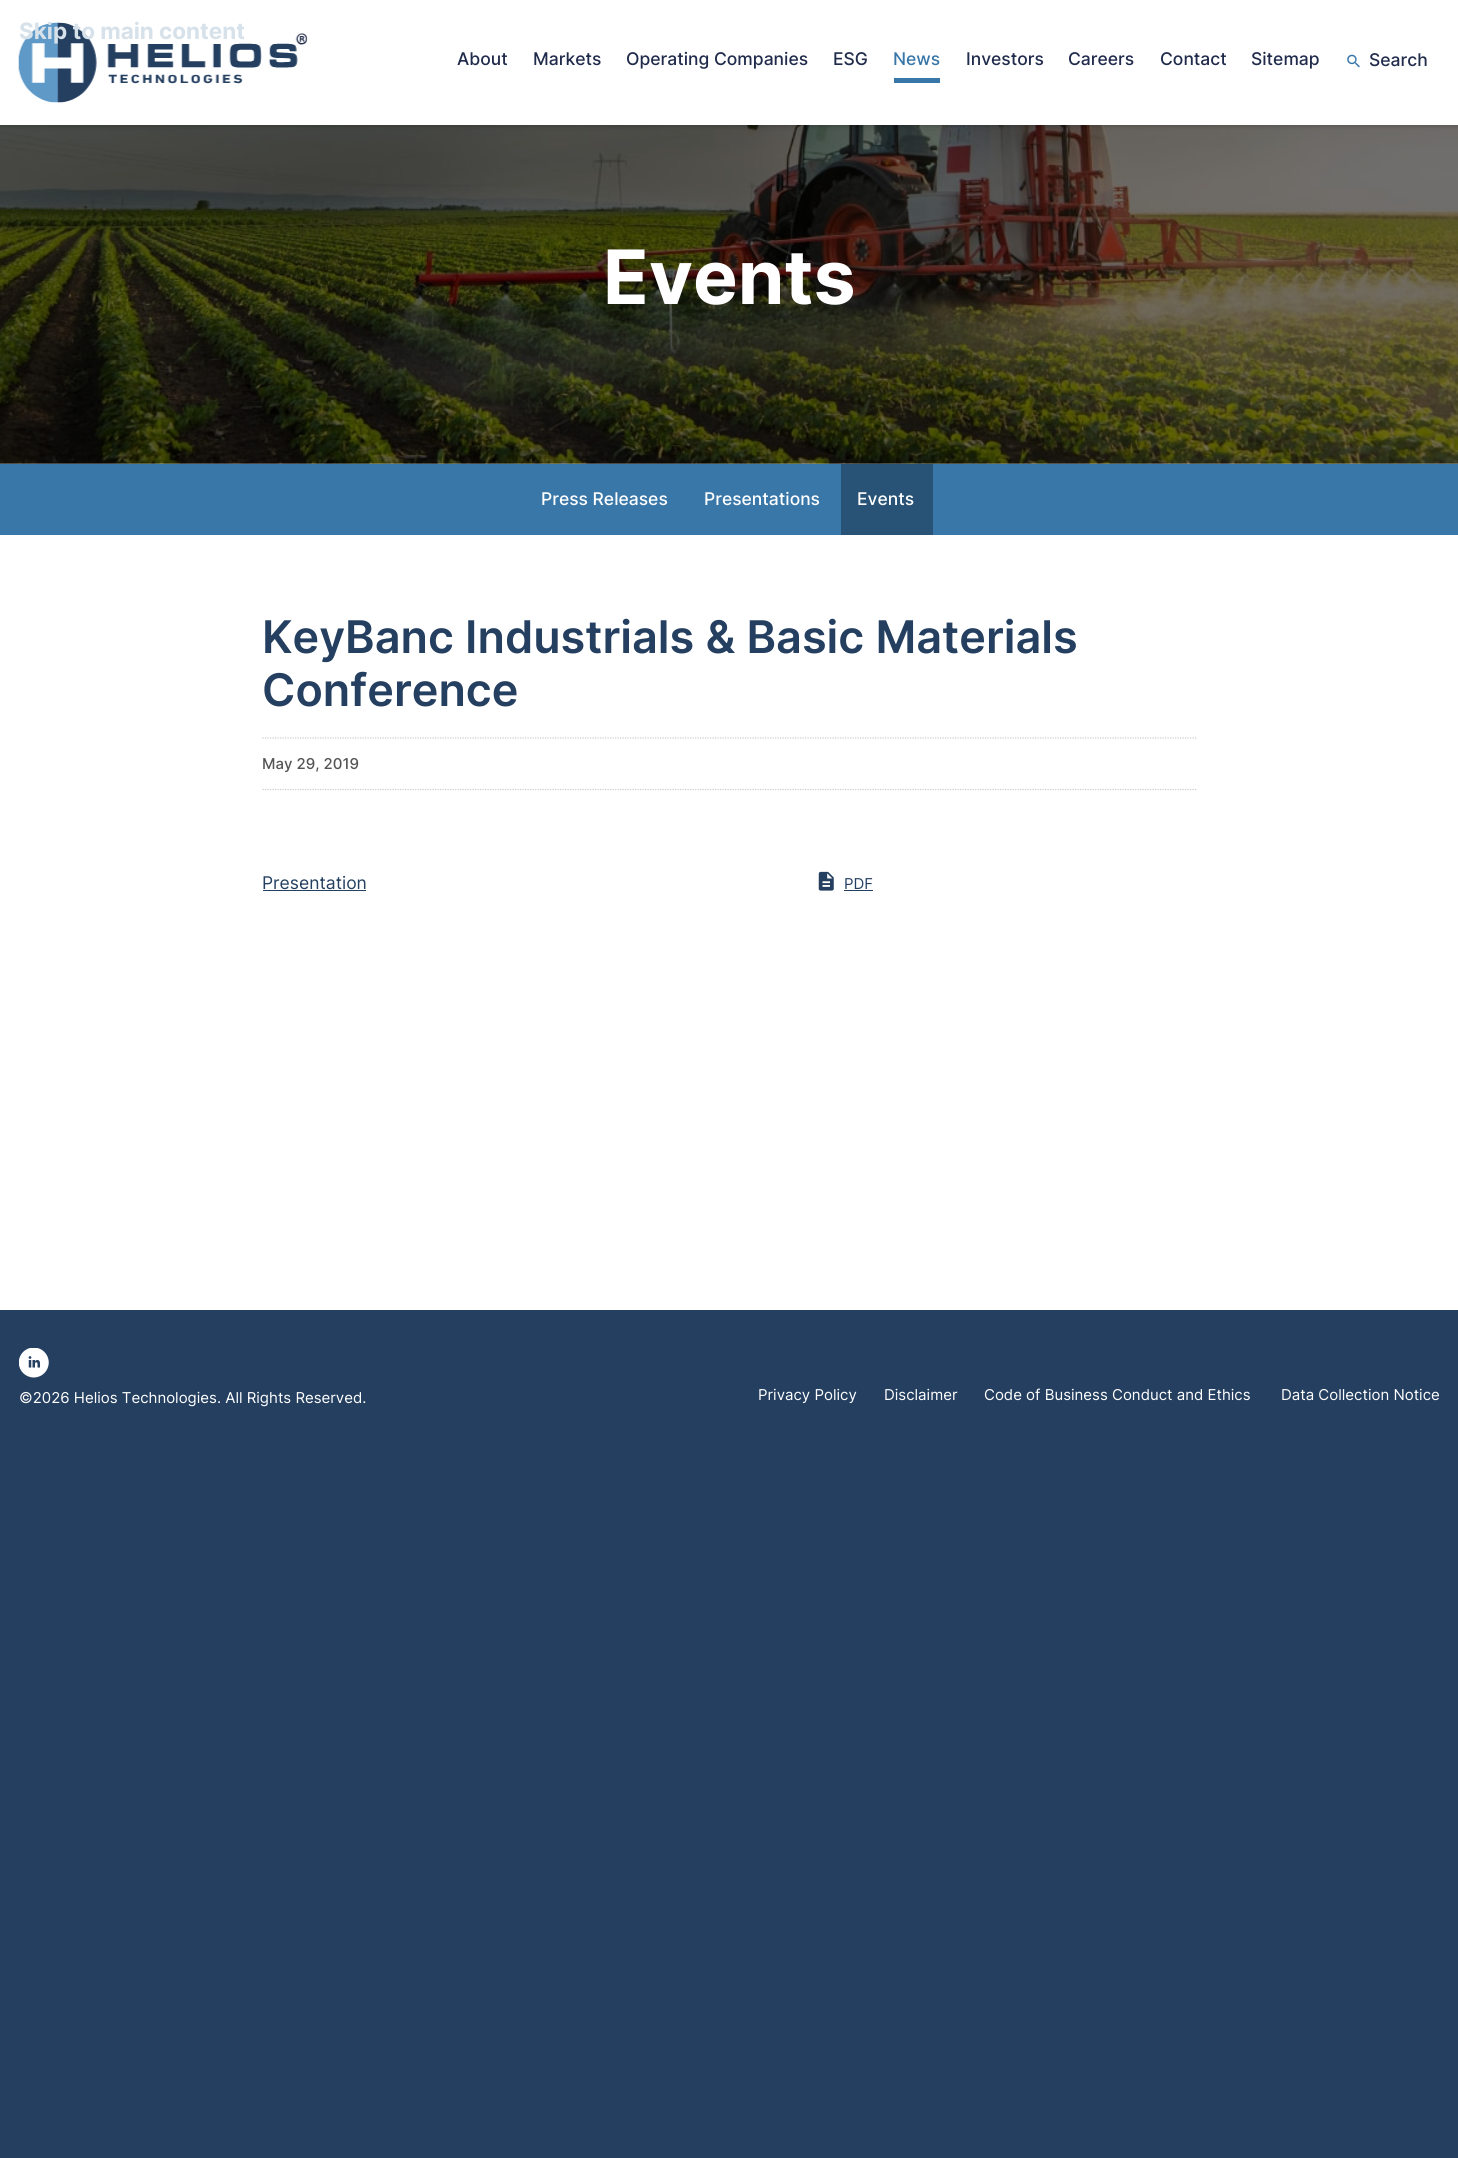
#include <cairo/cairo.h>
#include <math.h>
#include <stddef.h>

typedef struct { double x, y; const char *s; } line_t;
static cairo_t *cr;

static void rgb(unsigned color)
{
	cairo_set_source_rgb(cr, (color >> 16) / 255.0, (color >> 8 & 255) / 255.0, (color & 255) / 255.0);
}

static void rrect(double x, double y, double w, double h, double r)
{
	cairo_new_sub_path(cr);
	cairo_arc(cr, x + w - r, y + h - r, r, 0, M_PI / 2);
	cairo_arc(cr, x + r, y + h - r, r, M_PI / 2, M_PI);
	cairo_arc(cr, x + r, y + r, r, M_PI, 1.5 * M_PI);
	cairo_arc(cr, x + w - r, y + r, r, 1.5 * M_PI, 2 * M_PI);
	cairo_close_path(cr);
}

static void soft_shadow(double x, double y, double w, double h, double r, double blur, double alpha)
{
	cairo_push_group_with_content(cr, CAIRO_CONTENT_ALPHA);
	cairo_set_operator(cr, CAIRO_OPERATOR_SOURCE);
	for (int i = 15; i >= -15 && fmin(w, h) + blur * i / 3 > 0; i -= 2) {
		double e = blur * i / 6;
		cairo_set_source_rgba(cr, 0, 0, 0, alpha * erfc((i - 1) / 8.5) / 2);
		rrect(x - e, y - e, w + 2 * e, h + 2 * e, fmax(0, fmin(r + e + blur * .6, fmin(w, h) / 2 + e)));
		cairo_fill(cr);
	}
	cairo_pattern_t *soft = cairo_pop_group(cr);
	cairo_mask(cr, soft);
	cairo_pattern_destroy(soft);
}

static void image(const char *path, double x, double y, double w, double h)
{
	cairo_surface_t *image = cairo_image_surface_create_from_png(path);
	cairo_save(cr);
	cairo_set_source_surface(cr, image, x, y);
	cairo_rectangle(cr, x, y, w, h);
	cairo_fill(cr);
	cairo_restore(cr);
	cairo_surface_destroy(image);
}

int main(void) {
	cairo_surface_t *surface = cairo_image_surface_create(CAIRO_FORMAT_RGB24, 1458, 2158);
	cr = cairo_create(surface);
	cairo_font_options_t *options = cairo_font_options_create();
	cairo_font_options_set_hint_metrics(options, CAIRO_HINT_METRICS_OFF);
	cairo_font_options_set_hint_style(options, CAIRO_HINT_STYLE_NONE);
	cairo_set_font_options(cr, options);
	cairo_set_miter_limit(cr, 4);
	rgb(0x243f60);
	cairo_paint(cr);
	rgb(0xffffff);
	cairo_rectangle(cr, 0, 463, 1458, 847);
	cairo_fill(cr);
	image("img/3.png", 0, 125, 1458, 339);
	rgb(0x000000);
	soft_shadow(0, 0, 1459, 125, 0, 3, 0.3);
	rgb(0xffffff);
	cairo_rectangle(cr, 0, 0, 1458, 125);
	cairo_fill(cr);
	image("img/1.png", 18, 22, 290, 81);
	rgb(0x3977a9);
	cairo_rectangle(cr, 894, 78, 46, 5);
	cairo_fill(cr);
	image("img/2.png", 1347, 54, 13, 14);
	cairo_rectangle(cr, 0, 464, 1458, 71);
	cairo_fill(cr);
	rgb(0x285376);
	cairo_rectangle(cr, 841, 464, 92, 71);
	cairo_fill(cr);
	cairo_new_path(cr);
	cairo_move_to(cr, 262.5, 738);
	cairo_line_to(cr, 1197.5, 738);
	rgb(0xcccccc);
	cairo_set_line_width(cr, 1.2);
	cairo_set_dash(cr, (double[]){1.25, 1.25}, 2, 0);
	cairo_stroke(cr);
	cairo_new_path(cr);
	cairo_move_to(cr, 262.5, 789.5);
	cairo_line_to(cr, 1197.5, 789.5);
	cairo_stroke(cr);
	rgb(0x243f60);
	cairo_rectangle(cr, 263, 890, 103, 1);
	cairo_fill(cr);
	image("img/4.png", 818, 871, 16, 20);
	cairo_rectangle(cr, 844, 890, 29, 1);
	cairo_fill(cr);
	image("img/5.png", 19, 1348, 30, 30);
	cairo_select_font_face(cr, "Inter", CAIRO_FONT_SLANT_NORMAL, CAIRO_FONT_WEIGHT_BOLD);
	cairo_set_font_size(cr, 22.5);
	rgb(0xd6e1ea);
	cairo_move_to(cr, 19, 39);
	cairo_show_text(cr, "Skip to main content");
	cairo_select_font_face(cr, "Inter Medium", CAIRO_FONT_SLANT_NORMAL, CAIRO_FONT_WEIGHT_NORMAL);
	cairo_set_font_size(cr, 17.5);
	rgb(0x212c4c);
	{
		static const line_t items[] = {
			{457, 65, "About"},
			{533, 65, "Markets"},
			{626, 65, "Operating Companies"},
			{833, 65, "ESG"},
		};
		for (size_t i = 0; i < sizeof items / sizeof *items; i++) {
			cairo_move_to(cr, items[i].x, items[i].y);
			cairo_show_text(cr, items[i].s);
		}
	}
	rgb(0x3977a9);
	cairo_move_to(cr, 893, 65);
	cairo_show_text(cr, "News");
	rgb(0x212c4c);
	{
		static const line_t items[] = {
			{966, 65, "Investors"},
			{1068, 65, "Careers"},
			{1160, 65, "Contact"},
			{1251, 65, "Sitemap"},
			{1369, 66, "Search"},
		};
		for (size_t i = 0; i < sizeof items / sizeof *items; i++) {
			cairo_move_to(cr, items[i].x, items[i].y);
			cairo_show_text(cr, items[i].s);
		}
	}
	cairo_select_font_face(cr, "Inter", CAIRO_FONT_SLANT_NORMAL, CAIRO_FONT_WEIGHT_BOLD);
	cairo_set_font_size(cr, 75);
	rgb(0xffffff);
	cairo_move_to(cr, 603, 304);
	cairo_show_text(cr, "Events");
	cairo_select_font_face(cr, "Inter Medium", CAIRO_FONT_SLANT_NORMAL, CAIRO_FONT_WEIGHT_NORMAL);
	cairo_set_font_size(cr, 17.5);
	{
		static const line_t items[] = {
			{541, 505, "Press Releases"},
			{704, 505, "Presentations"},
			{857, 505, "Events"},
		};
		for (size_t i = 0; i < sizeof items / sizeof *items; i++) {
			cairo_move_to(cr, items[i].x, items[i].y);
			cairo_show_text(cr, items[i].s);
		}
	}
	cairo_select_font_face(cr, "Inter SemiBold", CAIRO_FONT_SLANT_NORMAL, CAIRO_FONT_WEIGHT_NORMAL);
	cairo_set_font_size(cr, 45);
	rgb(0x243f60);
	cairo_move_to(cr, 262, 653);
	cairo_show_text(cr, "KeyBanc Industrials & Basic Materials");
	cairo_move_to(cr, 262, 706);
	cairo_show_text(cr, "Conference");
	cairo_select_font_face(cr, "Inter Medium", CAIRO_FONT_SLANT_NORMAL, CAIRO_FONT_WEIGHT_NORMAL);
	cairo_set_font_size(cr, 15);
	rgb(0x555555);
	cairo_move_to(cr, 262, 769);
	cairo_show_text(cr, "May 29, 2019");
	cairo_select_font_face(cr, "Inter", CAIRO_FONT_SLANT_NORMAL, CAIRO_FONT_WEIGHT_NORMAL);
	cairo_set_font_size(cr, 17.5);
	rgb(0x243f60);
	cairo_move_to(cr, 262, 889);
	cairo_show_text(cr, "Presentation");
	cairo_set_font_size(cr, 15);
	cairo_move_to(cr, 844, 889);
	cairo_show_text(cr, "PDF");
	rgb(0xffffff);
	{
		static const line_t items[] = {
			{19, 1403, "©2026 Helios Technologies. All Rights Reserved."},
			{758, 1400, "Privacy Policy"},
			{884, 1400, "Disclaimer"},
			{984, 1400, "Code of Business Conduct and Ethics"},
			{1281, 1400, "Data Collection Notice"},
		};
		for (size_t i = 0; i < sizeof items / sizeof *items; i++) {
			cairo_move_to(cr, items[i].x, items[i].y);
			cairo_show_text(cr, items[i].s);
		}
	}
	cairo_surface_write_to_png(surface, "page.png");
	cairo_font_options_destroy(options);
	cairo_destroy(cr);
	cairo_surface_destroy(surface);
	return 0;
}
